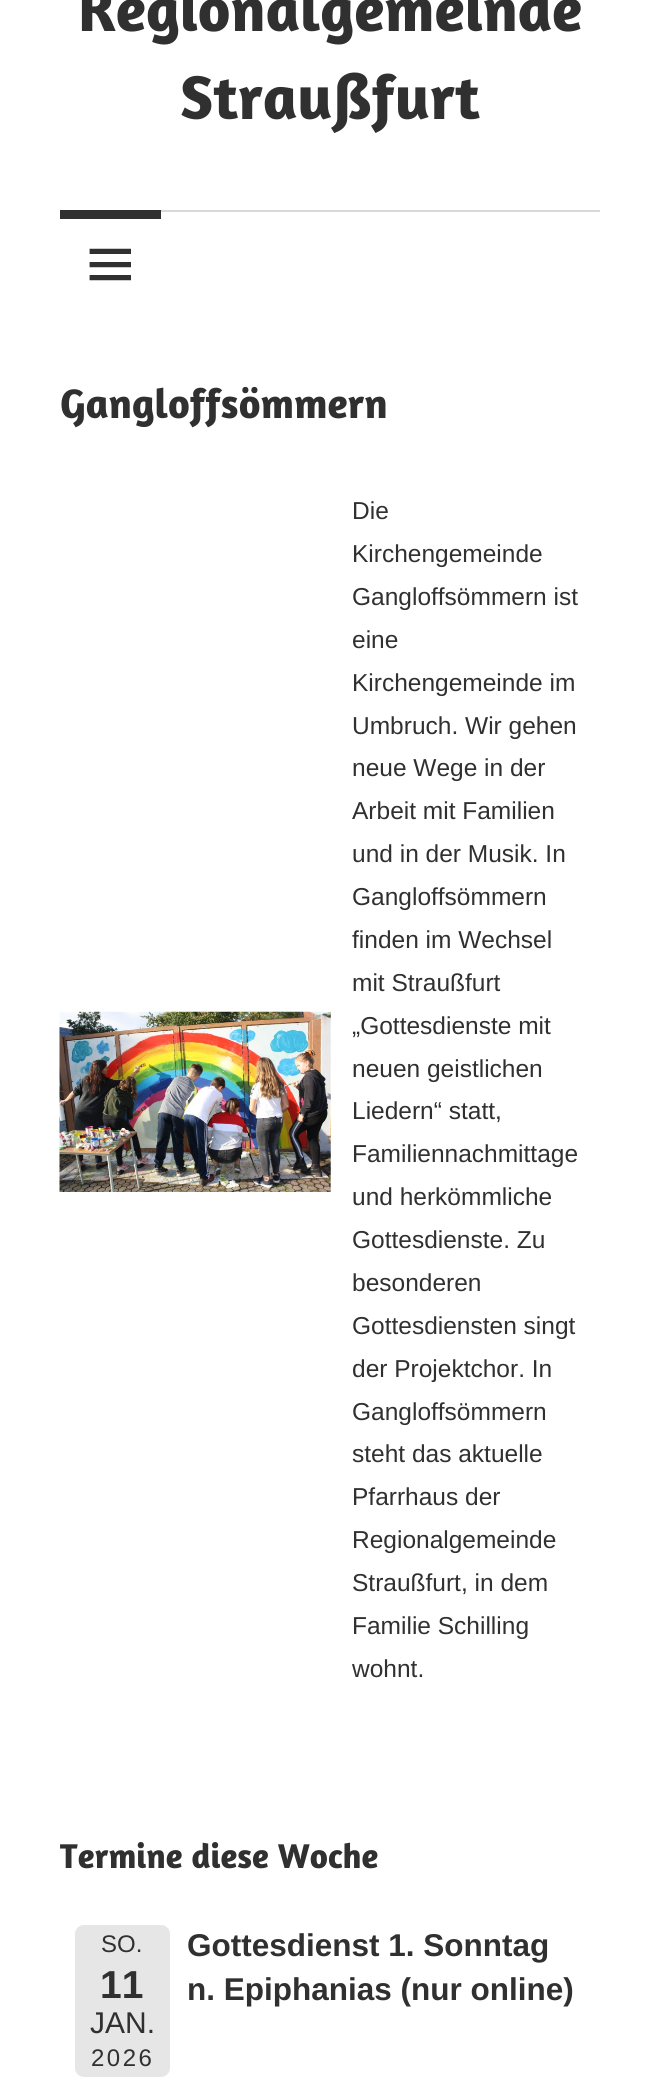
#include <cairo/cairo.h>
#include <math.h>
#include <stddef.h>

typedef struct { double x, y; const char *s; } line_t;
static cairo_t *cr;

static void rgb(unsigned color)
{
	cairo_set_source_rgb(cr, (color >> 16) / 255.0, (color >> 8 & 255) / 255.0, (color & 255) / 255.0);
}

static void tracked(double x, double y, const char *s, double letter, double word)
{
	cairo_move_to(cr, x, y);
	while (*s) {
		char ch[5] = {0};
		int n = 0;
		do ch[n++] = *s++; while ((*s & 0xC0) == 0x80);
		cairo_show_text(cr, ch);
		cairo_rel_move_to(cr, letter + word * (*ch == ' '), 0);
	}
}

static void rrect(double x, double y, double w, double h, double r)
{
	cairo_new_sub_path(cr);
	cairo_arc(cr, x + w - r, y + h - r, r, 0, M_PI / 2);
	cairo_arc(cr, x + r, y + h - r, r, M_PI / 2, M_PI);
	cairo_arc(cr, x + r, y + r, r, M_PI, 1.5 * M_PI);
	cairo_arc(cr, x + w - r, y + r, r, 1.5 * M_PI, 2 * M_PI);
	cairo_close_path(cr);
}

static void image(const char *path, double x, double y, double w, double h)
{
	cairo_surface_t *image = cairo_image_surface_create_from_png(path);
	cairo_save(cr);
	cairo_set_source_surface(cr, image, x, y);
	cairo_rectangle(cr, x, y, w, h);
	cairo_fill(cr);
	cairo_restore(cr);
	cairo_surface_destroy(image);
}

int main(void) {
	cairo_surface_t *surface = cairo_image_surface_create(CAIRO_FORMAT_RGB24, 659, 2100);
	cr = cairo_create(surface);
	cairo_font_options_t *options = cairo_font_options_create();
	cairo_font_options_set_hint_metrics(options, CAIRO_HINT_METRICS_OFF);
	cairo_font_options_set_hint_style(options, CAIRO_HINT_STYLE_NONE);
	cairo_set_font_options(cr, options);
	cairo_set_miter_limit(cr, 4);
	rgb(0xffffff);
	cairo_paint(cr);
	rgb(0xd9d9d9);
	cairo_rectangle(cr, 161, 210, 439, 2);
	cairo_fill(cr);
	rgb(0x303030);
	cairo_rectangle(cr, 60, 210, 101, 9);
	cairo_fill(cr);
	image("img/1.png", 89, 248, 42, 33);
	image("img/2.png", 59, 1011, 272, 181);
	rgb(0xe6e6e6);
	rrect(75, 1925, 95, 152, 9);
	cairo_fill(cr);
	cairo_select_font_face(cr, "Amaranth", CAIRO_FONT_SLANT_NORMAL, CAIRO_FONT_WEIGHT_BOLD);
	cairo_set_font_size(cr, 63);
	rgb(0x303030);
	cairo_move_to(cr, 78, 31);
	cairo_show_text(cr, "Regionalgemeinde");
	cairo_move_to(cr, 180, 119);
	cairo_show_text(cr, "Straußfurt");
	cairo_set_font_size(cr, 42);
	cairo_move_to(cr, 60, 418);
	cairo_show_text(cr, "Gangloffsömmern");
	cairo_select_font_face(cr, "Liberation Sans", CAIRO_FONT_SLANT_NORMAL, CAIRO_FONT_WEIGHT_NORMAL);
	cairo_set_font_size(cr, 24.5);
	{
		static const line_t items[] = {
			{352, 519, "Die"},
			{352, 562, "Kirchengemeinde"},
			{352, 605, "Gangloffsömmern ist"},
			{352, 648, "eine"},
			{352, 691, "Kirchengemeinde im"},
			{352, 734, "Umbruch. Wir gehen"},
			{352, 776, "neue Wege in der"},
			{352, 819, "Arbeit mit Familien"},
			{352, 862, "und in der Musik. In"},
			{352, 905, "Gangloffsömmern"},
			{352, 948, "finden im Wechsel"},
			{352, 991, "mit Straußfurt"},
			{352, 1034, "„Gottesdienste mit"},
			{352, 1077, "neuen geistlichen"},
			{352, 1119, "Liedern“ statt,"},
			{352, 1162, "Familiennachmittage"},
			{352, 1205, "und herkömmliche"},
			{352, 1248, "Gottesdienste. Zu"},
			{352, 1291, "besonderen"},
			{352, 1334, "Gottesdiensten singt"},
			{352, 1377, "der Projektchor. In"},
			{352, 1420, "Gangloffsömmern"},
			{352, 1462, "steht das aktuelle"},
			{352, 1505, "Pfarrhaus der"},
			{352, 1548, "Regionalgemeinde"},
			{352, 1591, "Straußfurt, in dem"},
			{352, 1634, "Familie Schilling"},
			{352, 1677, "wohnt."},
		};
		for (size_t i = 0; i < sizeof items / sizeof *items; i++) {
			cairo_move_to(cr, items[i].x, items[i].y);
			cairo_show_text(cr, items[i].s);
		}
	}
	cairo_select_font_face(cr, "Amaranth", CAIRO_FONT_SLANT_NORMAL, CAIRO_FONT_WEIGHT_BOLD);
	cairo_set_font_size(cr, 35);
	cairo_move_to(cr, 60, 1868);
	cairo_show_text(cr, "Termine diese Woche");
	cairo_select_font_face(cr, "Liberation Sans", CAIRO_FONT_SLANT_NORMAL, CAIRO_FONT_WEIGHT_NORMAL);
	cairo_set_font_size(cr, 24);
	cairo_move_to(cr, 101, 1952);
	cairo_show_text(cr, "SO.");
	cairo_select_font_face(cr, "Liberation Sans", CAIRO_FONT_SLANT_NORMAL, CAIRO_FONT_WEIGHT_BOLD);
	cairo_set_font_size(cr, 39);
	cairo_move_to(cr, 100, 1998);
	cairo_show_text(cr, "11");
	cairo_select_font_face(cr, "Liberation Sans", CAIRO_FONT_SLANT_NORMAL, CAIRO_FONT_WEIGHT_NORMAL);
	cairo_set_font_size(cr, 30);
	cairo_move_to(cr, 90, 2033);
	cairo_show_text(cr, "JAN.");
	cairo_set_font_size(cr, 24);
	tracked(91, 2066, "2026", 2.5, 0);
	cairo_select_font_face(cr, "Liberation Sans", CAIRO_FONT_SLANT_NORMAL, CAIRO_FONT_WEIGHT_BOLD);
	cairo_set_font_size(cr, 31.5);
	cairo_move_to(cr, 187, 1956);
	cairo_show_text(cr, "Gottesdienst 1. Sonntag");
	cairo_move_to(cr, 187, 2000);
	cairo_show_text(cr, "n. Epiphanias (nur online)");
	cairo_surface_write_to_png(surface, "page.png");
	cairo_font_options_destroy(options);
	cairo_destroy(cr);
	cairo_surface_destroy(surface);
	return 0;
}
